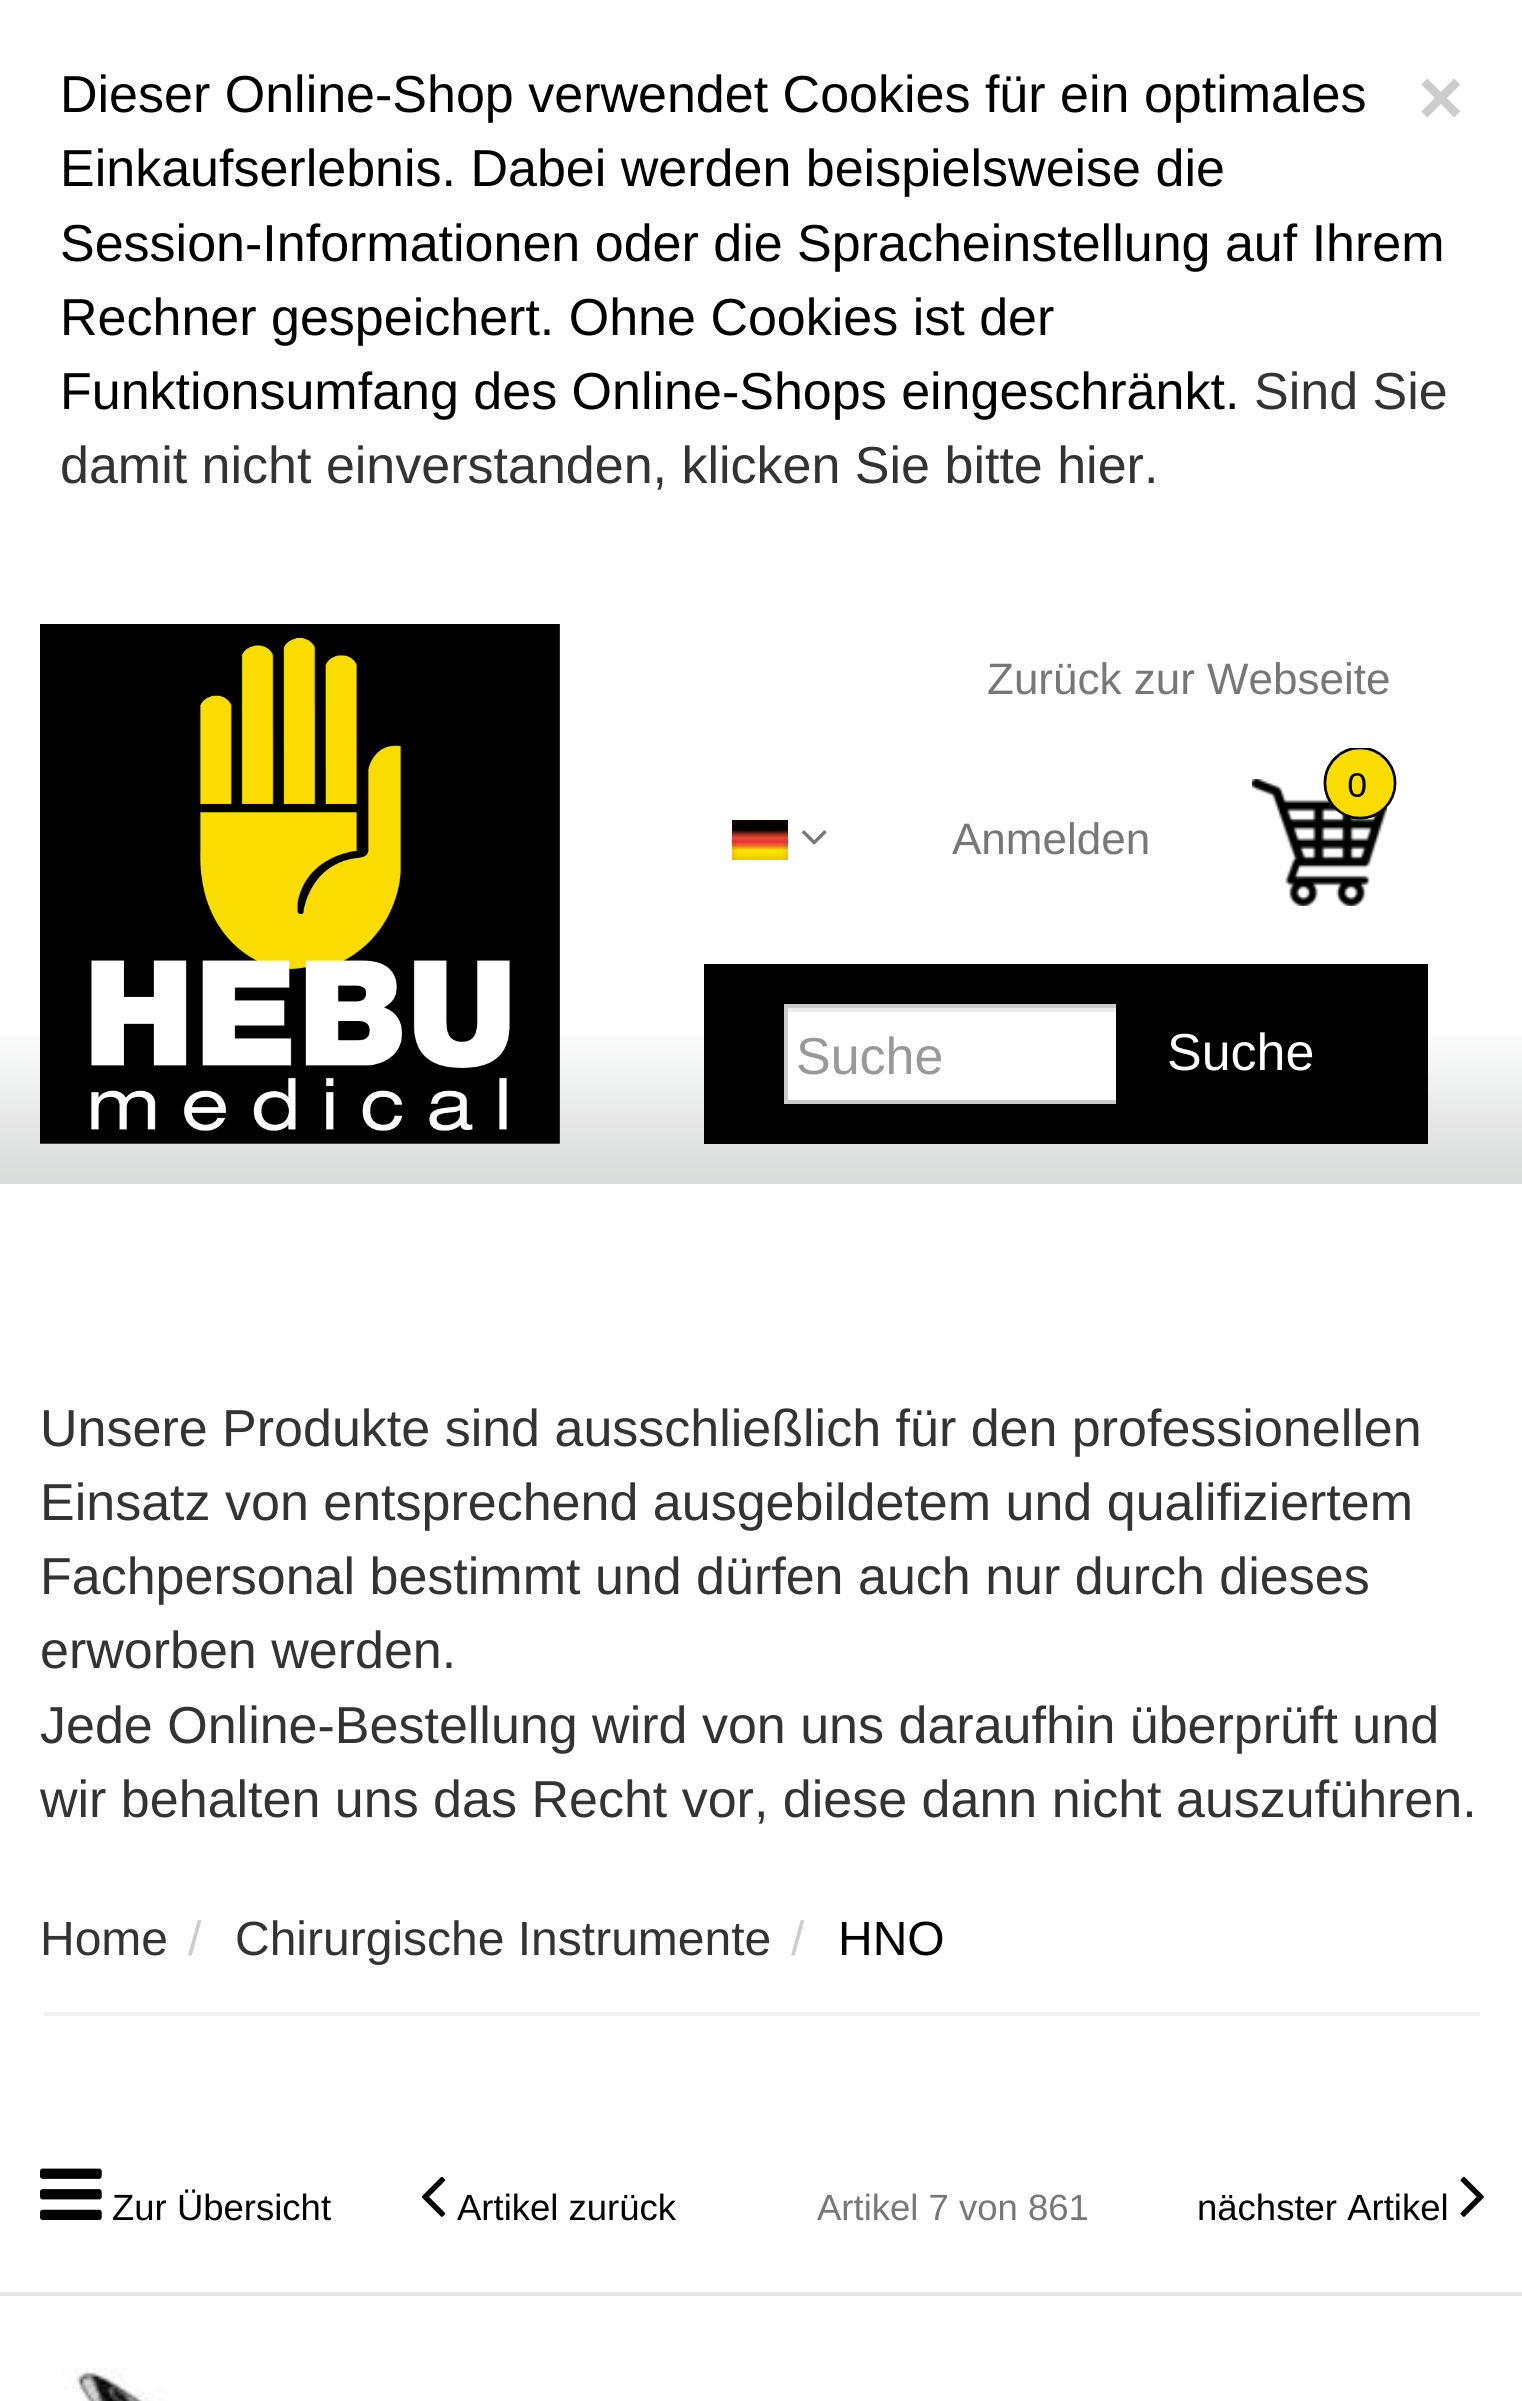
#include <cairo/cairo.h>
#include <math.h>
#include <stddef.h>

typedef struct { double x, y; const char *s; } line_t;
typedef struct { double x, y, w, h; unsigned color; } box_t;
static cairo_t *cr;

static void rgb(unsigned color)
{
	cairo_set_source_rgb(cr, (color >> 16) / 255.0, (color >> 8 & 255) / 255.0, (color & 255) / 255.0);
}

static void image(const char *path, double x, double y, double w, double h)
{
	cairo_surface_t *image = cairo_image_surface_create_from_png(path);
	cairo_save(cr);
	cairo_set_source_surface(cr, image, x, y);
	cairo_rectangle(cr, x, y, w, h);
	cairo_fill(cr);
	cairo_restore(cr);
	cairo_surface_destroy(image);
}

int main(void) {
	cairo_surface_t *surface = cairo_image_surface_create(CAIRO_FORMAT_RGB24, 1522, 2401);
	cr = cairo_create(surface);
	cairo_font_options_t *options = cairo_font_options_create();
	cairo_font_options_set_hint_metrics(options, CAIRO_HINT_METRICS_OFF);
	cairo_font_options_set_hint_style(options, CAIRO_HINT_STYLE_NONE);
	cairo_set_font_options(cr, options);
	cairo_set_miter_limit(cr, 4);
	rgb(0xffffff);
	cairo_paint(cr);
	image("img/1.png", 0, 1035, 1522, 149);
	image("img/2.png", 40, 624, 520, 520);
	image("img/3.png", 732, 820, 56, 40);
	image("img/4.png", 802, 830, 25, 15);
	image("img/5.png", 1252, 748, 145, 158);
	{
		static const box_t items[] = {
			{704, 964, 724, 180, 0x000000},
			{788, 1012, 328, 88, 0xffffff},
			{788, 1008, 328, 4, 0xececec},
		};
		for (size_t i = 0; i < sizeof items / sizeof *items; i++) {
			rgb(items[i].color);
			cairo_rectangle(cr, items[i].x, items[i].y, items[i].w, items[i].h);
			cairo_fill(cr);
		}
	}
	cairo_rectangle(cr, 786, 1006, 352, 96);
	rgb(0xcccccc);
	cairo_set_line_width(cr, 4);
	cairo_stroke(cr);
	{
		static const box_t items[] = {
			{1116, 1004, 24, 100, 0x000000},
			{44, 2012, 1436, 4, 0xf2f2f2},
			{0, 2292, 1522, 4, 0xe7e7e7},
		};
		for (size_t i = 0; i < sizeof items / sizeof *items; i++) {
			rgb(items[i].color);
			cairo_rectangle(cr, items[i].x, items[i].y, items[i].w, items[i].h);
			cairo_fill(cr);
		}
	}
	image("img/6.png", 40, 2168, 62, 52);
	image("img/7.png", 421, 2176, 25, 41);
	image("img/8.png", 1460, 2176, 24, 41);
	image("img/9.png", 62, 2368, 106, 33);
	cairo_select_font_face(cr, "Liberation Sans", CAIRO_FONT_SLANT_NORMAL, CAIRO_FONT_WEIGHT_NORMAL);
	cairo_set_font_size(cr, 52);
	rgb(0x000000);
	cairo_move_to(cr, 60, 112);
	cairo_show_text(cr, "Dieser Online-Shop verwendet Cookies für ein optimales");
	cairo_select_font_face(cr, "Liberation Sans", CAIRO_FONT_SLANT_NORMAL, CAIRO_FONT_WEIGHT_BOLD);
	cairo_set_font_size(cr, 78);
	rgb(0xcccccc);
	cairo_move_to(cr, 1418, 124);
	cairo_show_text(cr, "×");
	cairo_select_font_face(cr, "Liberation Sans", CAIRO_FONT_SLANT_NORMAL, CAIRO_FONT_WEIGHT_NORMAL);
	cairo_set_font_size(cr, 52);
	rgb(0x000000);
	{
		static const line_t items[] = {
			{60, 186, "Einkaufserlebnis. Dabei werden beispielsweise die"},
			{60, 261, "Session-Informationen oder die Spracheinstellung auf Ihrem"},
			{60, 335, "Rechner gespeichert. Ohne Cookies ist der"},
			{60, 409, "Funktionsumfang des Online-Shops eingeschränkt."},
		};
		for (size_t i = 0; i < sizeof items / sizeof *items; i++) {
			cairo_move_to(cr, items[i].x, items[i].y);
			cairo_show_text(cr, items[i].s);
		}
	}
	rgb(0x333333);
	cairo_move_to(cr, 1254, 409);
	cairo_show_text(cr, "Sind Sie");
	cairo_move_to(cr, 60, 483);
	cairo_show_text(cr, "damit nicht einverstanden, klicken Sie bitte hier.");
	cairo_set_font_size(cr, 44);
	rgb(0x777777);
	cairo_move_to(cr, 987, 694);
	cairo_show_text(cr, "Zurück zur Webseite");
	cairo_move_to(cr, 952, 854);
	cairo_show_text(cr, "Anmelden");
	cairo_set_font_size(cr, 52);
	rgb(0x999999);
	cairo_move_to(cr, 796, 1074);
	cairo_show_text(cr, "Suche");
	rgb(0xffffff);
	cairo_move_to(cr, 1167, 1070);
	cairo_show_text(cr, "Suche");
	rgb(0x333333);
	{
		static const line_t items[] = {
			{40, 1446, "Unsere Produkte sind ausschließlich für den professionellen"},
			{40, 1520, "Einsatz von entsprechend ausgebildetem und qualifiziertem"},
			{40, 1594, "Fachpersonal bestimmt und dürfen auch nur durch dieses"},
			{40, 1668, "erworben werden."},
			{40, 1743, "Jede Online-Bestellung wird von uns daraufhin überprüft und"},
			{40, 1817, "wir behalten uns das Recht vor, diese dann nicht auszuführen."},
		};
		for (size_t i = 0; i < sizeof items / sizeof *items; i++) {
			cairo_move_to(cr, items[i].x, items[i].y);
			cairo_show_text(cr, items[i].s);
		}
	}
	cairo_set_font_size(cr, 48);
	cairo_move_to(cr, 40, 1955);
	cairo_show_text(cr, "Home");
	rgb(0xcccccc);
	cairo_move_to(cr, 188, 1955);
	cairo_show_text(cr, "/");
	rgb(0x333333);
	cairo_move_to(cr, 235, 1955);
	cairo_show_text(cr, "Chirurgische Instrumente");
	rgb(0xcccccc);
	cairo_move_to(cr, 791, 1955);
	cairo_show_text(cr, "/");
	rgb(0x000000);
	cairo_move_to(cr, 838, 1955);
	cairo_show_text(cr, "HNO");
	cairo_set_font_size(cr, 36.5);
	cairo_move_to(cr, 112, 2220);
	cairo_show_text(cr, "Zur Übersicht");
	cairo_move_to(cr, 457, 2220);
	cairo_show_text(cr, "Artikel zurück");
	rgb(0x777777);
	cairo_move_to(cr, 817, 2220);
	cairo_show_text(cr, "Artikel 7 von 861");
	rgb(0x000000);
	cairo_move_to(cr, 1197, 2220);
	cairo_show_text(cr, "nächster Artikel");
	cairo_surface_write_to_png(surface, "page.png");
	cairo_font_options_destroy(options);
	cairo_destroy(cr);
	cairo_surface_destroy(surface);
	return 0;
}
